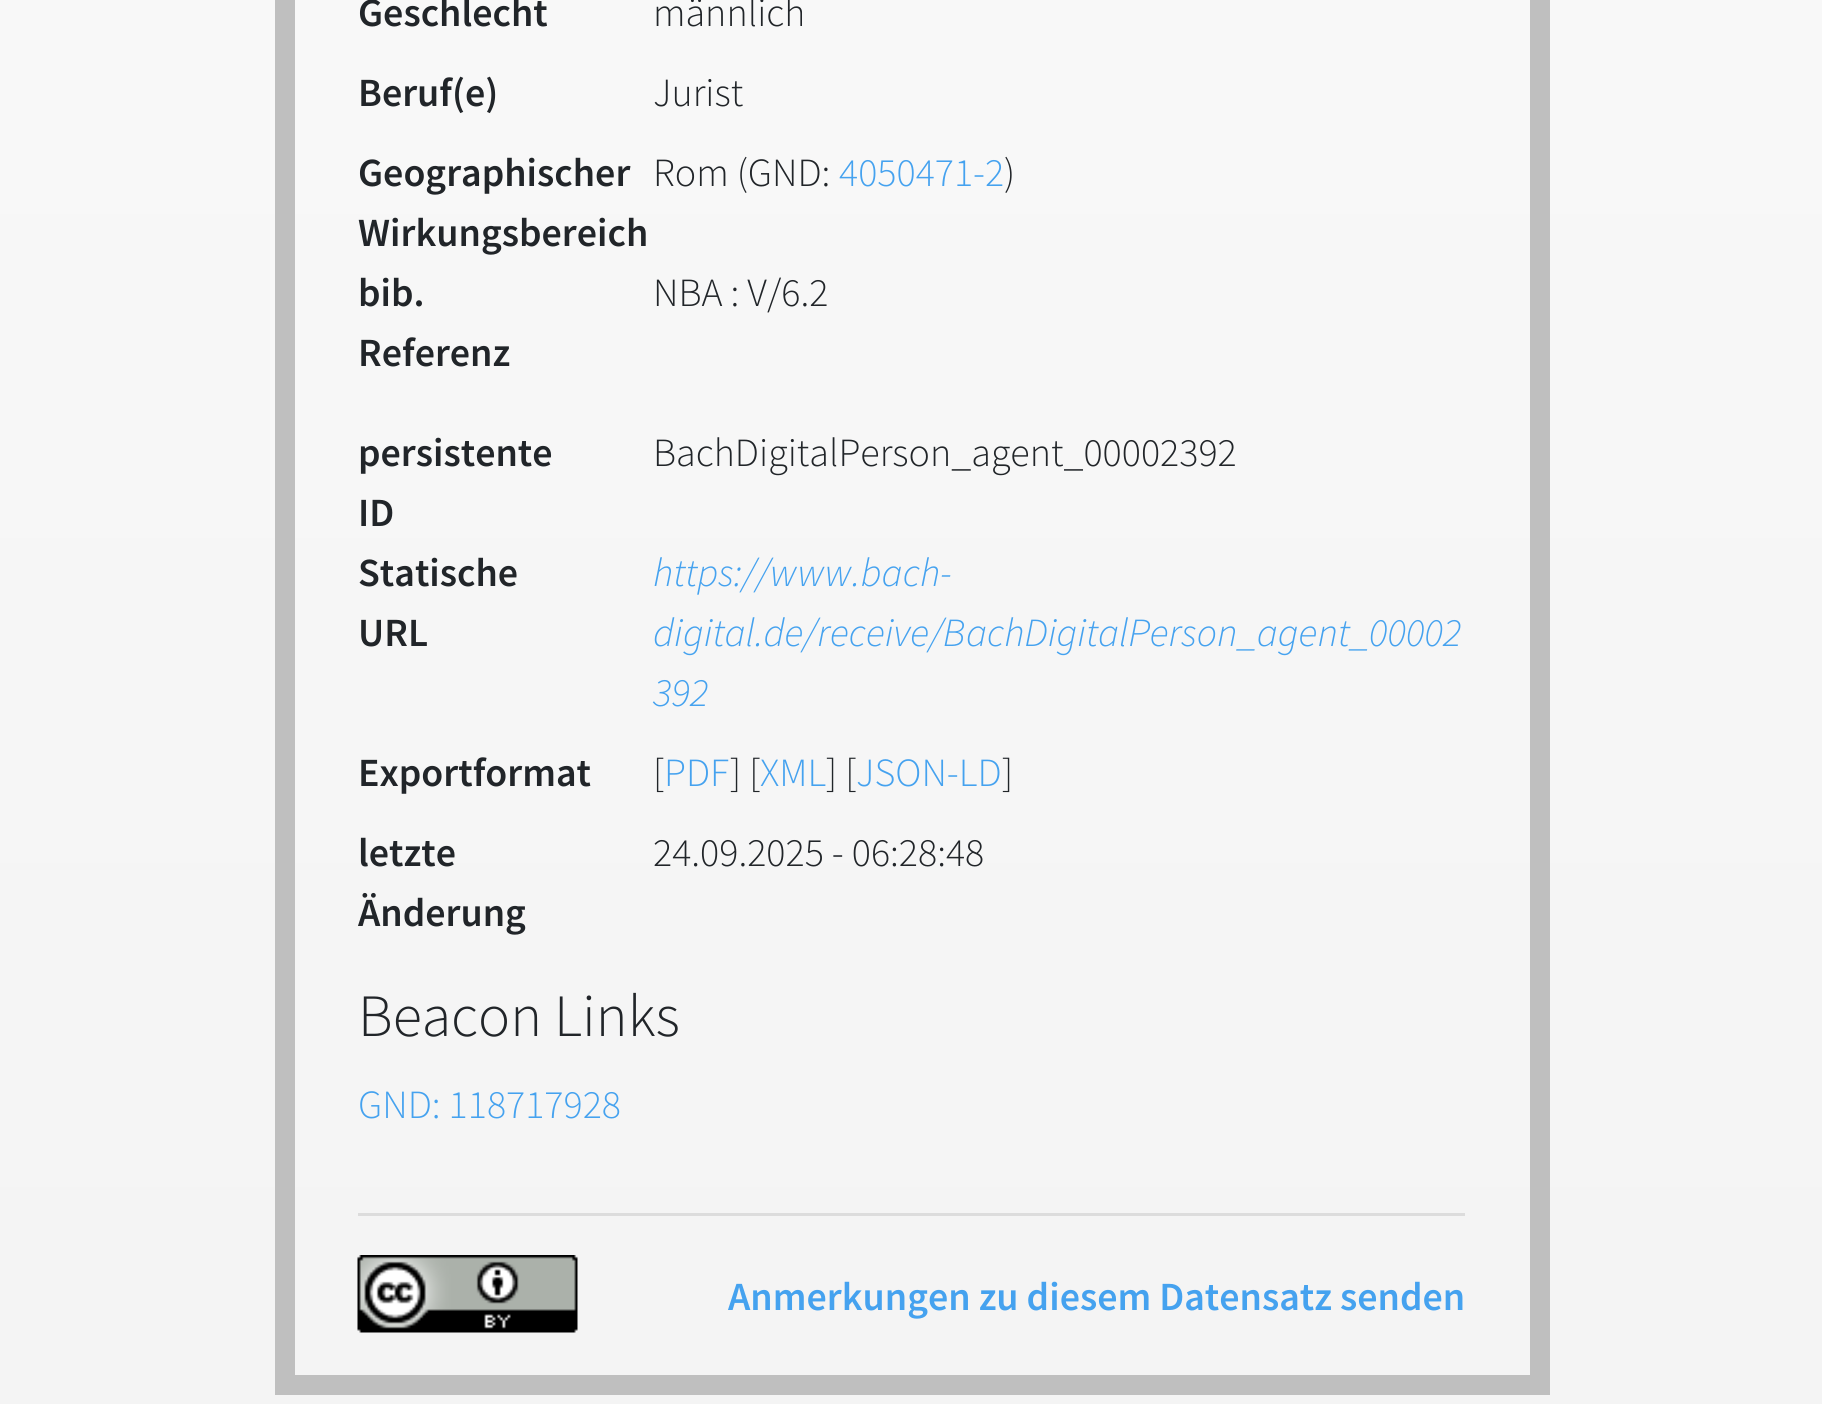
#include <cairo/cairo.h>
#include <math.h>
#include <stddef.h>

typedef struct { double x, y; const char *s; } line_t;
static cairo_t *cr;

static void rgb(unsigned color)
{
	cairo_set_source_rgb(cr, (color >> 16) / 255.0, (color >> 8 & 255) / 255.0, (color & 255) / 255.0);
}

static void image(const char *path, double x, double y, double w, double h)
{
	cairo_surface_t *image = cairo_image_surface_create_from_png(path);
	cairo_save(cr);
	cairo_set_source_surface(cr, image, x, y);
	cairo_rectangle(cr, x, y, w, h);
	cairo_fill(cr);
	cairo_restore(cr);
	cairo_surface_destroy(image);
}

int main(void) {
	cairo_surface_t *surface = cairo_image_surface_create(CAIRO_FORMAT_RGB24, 1822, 1404);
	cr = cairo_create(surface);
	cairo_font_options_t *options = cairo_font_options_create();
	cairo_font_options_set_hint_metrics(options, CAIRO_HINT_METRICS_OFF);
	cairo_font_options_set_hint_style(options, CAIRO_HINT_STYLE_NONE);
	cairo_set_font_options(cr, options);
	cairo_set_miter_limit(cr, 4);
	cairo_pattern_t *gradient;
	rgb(0xffffff);
	cairo_paint(cr);
	gradient = cairo_pattern_create_linear(911, -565, 911, 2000);
	cairo_pattern_add_color_stop_rgba(gradient, 0, 0.98, 0.98, 0.98, 1);
	cairo_pattern_add_color_stop_rgba(gradient, 1, 0.949, 0.949, 0.949, 1);
	cairo_set_source(cr, gradient);
	cairo_pattern_destroy(gradient);
	cairo_rectangle(cr, 0, 0, 1822, 1404);
	cairo_fill(cr);
	cairo_rectangle(cr, 285, -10, 1255, 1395);
	rgb(0xbfbfbf);
	cairo_set_line_width(cr, 20);
	cairo_stroke(cr);
	rgb(0xdcdcdc);
	cairo_rectangle(cr, 358, 1213, 1107, 3);
	cairo_fill(cr);
	image("img/1.png", 357, 1255, 221, 78);
	cairo_select_font_face(cr, "Source Sans Pro SemiBold", CAIRO_FONT_SLANT_NORMAL, CAIRO_FONT_WEIGHT_NORMAL);
	cairo_set_font_size(cr, 40);
	rgb(0x212529);
	cairo_move_to(cr, 358, 26);
	cairo_show_text(cr, "Geschlecht");
	cairo_select_font_face(cr, "Source Sans Pro Light", CAIRO_FONT_SLANT_NORMAL, CAIRO_FONT_WEIGHT_NORMAL);
	cairo_move_to(cr, 653, 26);
	cairo_show_text(cr, "männlich");
	cairo_select_font_face(cr, "Source Sans Pro SemiBold", CAIRO_FONT_SLANT_NORMAL, CAIRO_FONT_WEIGHT_NORMAL);
	cairo_move_to(cr, 358, 106);
	cairo_show_text(cr, "Beruf(e)");
	cairo_select_font_face(cr, "Source Sans Pro Light", CAIRO_FONT_SLANT_NORMAL, CAIRO_FONT_WEIGHT_NORMAL);
	cairo_move_to(cr, 653, 106);
	cairo_show_text(cr, "Jurist");
	cairo_select_font_face(cr, "Source Sans Pro SemiBold", CAIRO_FONT_SLANT_NORMAL, CAIRO_FONT_WEIGHT_NORMAL);
	cairo_move_to(cr, 358, 186);
	cairo_show_text(cr, "Geographischer");
	cairo_move_to(cr, 358, 246);
	cairo_show_text(cr, "Wirkungsbereich");
	cairo_select_font_face(cr, "Source Sans Pro Light", CAIRO_FONT_SLANT_NORMAL, CAIRO_FONT_WEIGHT_NORMAL);
	cairo_move_to(cr, 653, 186);
	cairo_show_text(cr, "Rom (GND:");
	rgb(0x45a2ef);
	cairo_move_to(cr, 839, 186);
	cairo_show_text(cr, "4050471-2");
	rgb(0x212529);
	cairo_move_to(cr, 1004, 186);
	cairo_show_text(cr, ")");
	cairo_select_font_face(cr, "Source Sans Pro SemiBold", CAIRO_FONT_SLANT_NORMAL, CAIRO_FONT_WEIGHT_NORMAL);
	cairo_move_to(cr, 358, 306);
	cairo_show_text(cr, "bib.");
	cairo_move_to(cr, 358, 366);
	cairo_show_text(cr, "Referenz");
	cairo_select_font_face(cr, "Source Sans Pro Light", CAIRO_FONT_SLANT_NORMAL, CAIRO_FONT_WEIGHT_NORMAL);
	cairo_move_to(cr, 653, 306);
	cairo_show_text(cr, "NBA : V/6.2");
	cairo_select_font_face(cr, "Source Sans Pro SemiBold", CAIRO_FONT_SLANT_NORMAL, CAIRO_FONT_WEIGHT_NORMAL);
	cairo_move_to(cr, 358, 466);
	cairo_show_text(cr, "persistente");
	cairo_move_to(cr, 358, 526);
	cairo_show_text(cr, "ID");
	cairo_select_font_face(cr, "Source Sans Pro Light", CAIRO_FONT_SLANT_NORMAL, CAIRO_FONT_WEIGHT_NORMAL);
	cairo_move_to(cr, 653, 466);
	cairo_show_text(cr, "BachDigitalPerson_agent_00002392");
	cairo_select_font_face(cr, "Source Sans Pro SemiBold", CAIRO_FONT_SLANT_NORMAL, CAIRO_FONT_WEIGHT_NORMAL);
	cairo_move_to(cr, 358, 586);
	cairo_show_text(cr, "Statische");
	cairo_move_to(cr, 358, 646);
	cairo_show_text(cr, "URL");
	cairo_select_font_face(cr, "Source Sans Pro Light", CAIRO_FONT_SLANT_ITALIC, CAIRO_FONT_WEIGHT_NORMAL);
	rgb(0x45a2ef);
	{
		static const line_t items[] = {
			{653, 586, "https://www.bach-"},
			{653, 646, "digital.de/receive/BachDigitalPerson_agent_00002"},
			{653, 706, "392"},
		};
		for (size_t i = 0; i < sizeof items / sizeof *items; i++) {
			cairo_move_to(cr, items[i].x, items[i].y);
			cairo_show_text(cr, items[i].s);
		}
	}
	cairo_select_font_face(cr, "Source Sans Pro SemiBold", CAIRO_FONT_SLANT_NORMAL, CAIRO_FONT_WEIGHT_NORMAL);
	rgb(0x212529);
	cairo_move_to(cr, 358, 786);
	cairo_show_text(cr, "Exportformat");
	cairo_select_font_face(cr, "Source Sans Pro Light", CAIRO_FONT_SLANT_NORMAL, CAIRO_FONT_WEIGHT_NORMAL);
	cairo_move_to(cr, 653, 786);
	cairo_show_text(cr, "[");
	rgb(0x45a2ef);
	cairo_move_to(cr, 664, 786);
	cairo_show_text(cr, "PDF");
	rgb(0x212529);
	cairo_move_to(cr, 730, 786);
	cairo_show_text(cr, "] [");
	rgb(0x45a2ef);
	cairo_move_to(cr, 760, 786);
	cairo_show_text(cr, "XML");
	rgb(0x212529);
	cairo_move_to(cr, 826, 786);
	cairo_show_text(cr, "] [");
	rgb(0x45a2ef);
	cairo_move_to(cr, 856, 786);
	cairo_show_text(cr, "JSON-LD");
	rgb(0x212529);
	cairo_move_to(cr, 1002, 786);
	cairo_show_text(cr, "]");
	cairo_select_font_face(cr, "Source Sans Pro SemiBold", CAIRO_FONT_SLANT_NORMAL, CAIRO_FONT_WEIGHT_NORMAL);
	cairo_move_to(cr, 358, 866);
	cairo_show_text(cr, "letzte");
	cairo_move_to(cr, 358, 926);
	cairo_show_text(cr, "Änderung");
	cairo_select_font_face(cr, "Source Sans Pro Light", CAIRO_FONT_SLANT_NORMAL, CAIRO_FONT_WEIGHT_NORMAL);
	cairo_move_to(cr, 653, 866);
	cairo_show_text(cr, "24.09.2025 - 06:28:48");
	cairo_set_font_size(cr, 60);
	cairo_move_to(cr, 358, 1036);
	cairo_show_text(cr, "Beacon Links");
	cairo_set_font_size(cr, 40);
	rgb(0x45a2ef);
	cairo_move_to(cr, 358, 1118);
	cairo_show_text(cr, "GND: 118717928");
	cairo_select_font_face(cr, "Source Sans Pro SemiBold", CAIRO_FONT_SLANT_NORMAL, CAIRO_FONT_WEIGHT_NORMAL);
	cairo_move_to(cr, 728, 1310);
	cairo_show_text(cr, "Anmerkungen zu diesem Datensatz senden");
	cairo_surface_write_to_png(surface, "page.png");
	cairo_font_options_destroy(options);
	cairo_destroy(cr);
	cairo_surface_destroy(surface);
	return 0;
}
